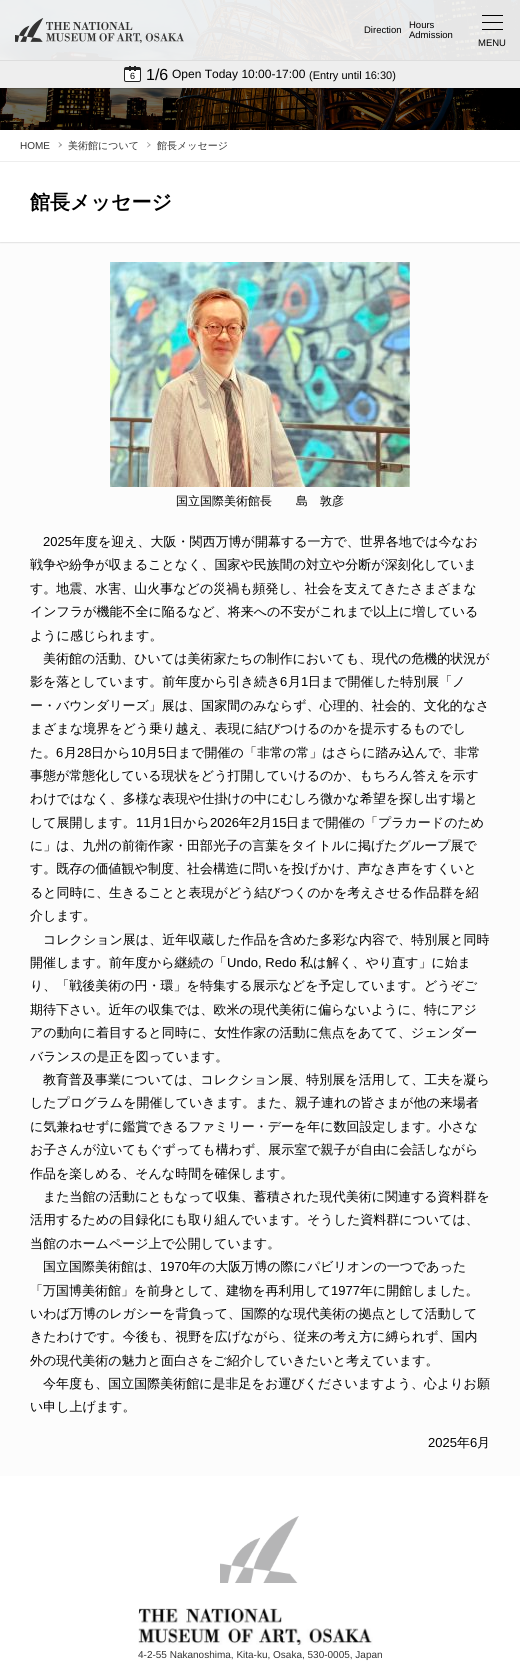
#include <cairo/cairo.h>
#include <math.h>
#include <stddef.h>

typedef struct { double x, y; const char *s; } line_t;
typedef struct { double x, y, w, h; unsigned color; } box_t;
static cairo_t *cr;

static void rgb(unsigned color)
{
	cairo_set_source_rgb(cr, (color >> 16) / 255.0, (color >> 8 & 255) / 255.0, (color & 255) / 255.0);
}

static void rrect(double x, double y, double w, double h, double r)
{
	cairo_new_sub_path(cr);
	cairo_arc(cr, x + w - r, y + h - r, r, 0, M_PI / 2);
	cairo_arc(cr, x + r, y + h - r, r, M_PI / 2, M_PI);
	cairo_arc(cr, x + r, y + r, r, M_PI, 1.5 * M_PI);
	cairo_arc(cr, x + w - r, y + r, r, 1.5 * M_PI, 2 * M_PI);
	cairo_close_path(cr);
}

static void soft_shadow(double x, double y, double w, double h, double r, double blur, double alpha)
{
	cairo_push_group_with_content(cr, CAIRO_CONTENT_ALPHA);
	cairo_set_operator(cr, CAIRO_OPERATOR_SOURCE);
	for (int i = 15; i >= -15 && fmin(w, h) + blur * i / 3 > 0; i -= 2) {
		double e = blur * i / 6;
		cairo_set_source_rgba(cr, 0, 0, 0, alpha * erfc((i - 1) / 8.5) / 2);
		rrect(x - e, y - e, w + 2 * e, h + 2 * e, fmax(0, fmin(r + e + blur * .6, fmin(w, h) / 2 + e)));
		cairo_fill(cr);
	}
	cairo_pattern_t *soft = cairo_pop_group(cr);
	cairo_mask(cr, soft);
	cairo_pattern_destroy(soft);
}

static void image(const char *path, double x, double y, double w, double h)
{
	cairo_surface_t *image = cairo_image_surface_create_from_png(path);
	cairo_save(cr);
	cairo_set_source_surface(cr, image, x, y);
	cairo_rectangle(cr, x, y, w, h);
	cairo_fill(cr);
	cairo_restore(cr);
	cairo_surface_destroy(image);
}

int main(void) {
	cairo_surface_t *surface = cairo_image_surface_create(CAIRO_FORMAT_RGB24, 520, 1679);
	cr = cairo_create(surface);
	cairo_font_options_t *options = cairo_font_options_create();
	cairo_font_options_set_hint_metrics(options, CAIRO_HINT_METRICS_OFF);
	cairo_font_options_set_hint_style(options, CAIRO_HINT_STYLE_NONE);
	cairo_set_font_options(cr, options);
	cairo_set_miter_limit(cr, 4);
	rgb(0xfcfcfc);
	cairo_paint(cr);
	image("img/2.png", 0, 0, 520, 130);
	cairo_save(cr);
	cairo_rectangle(cr, 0, 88, 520, 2);
	cairo_clip(cr);
	rgb(0x000000);
	soft_shadow(0, 1, 520, 88, 0, 0.5, 0.2);
	cairo_restore(cr);
	cairo_set_source_rgba(cr, 1, 1, 1, 0.9);
	cairo_rectangle(cr, 0, 0, 520, 60);
	cairo_fill(cr);
	image("img/1.png", 15, 18, 169, 25);
	{
		static const box_t items[] = {
			{482, 15, 21, 1, 0x000000},
			{482, 22, 21, 1, 0x000000},
			{482, 29, 21, 1, 0x000000},
			{0, 61, 520, 27, 0xeeeeee},
			{0, 60, 520, 1, 0xdddddd},
		};
		for (size_t i = 0; i < sizeof items / sizeof *items; i++) {
			rgb(items[i].color);
			cairo_rectangle(cr, items[i].x, items[i].y, items[i].w, items[i].h);
			cairo_fill(cr);
		}
	}
	rgb(0xffffff);
	cairo_new_path(cr);
	cairo_move_to(cr, 126, 70);
	cairo_line_to(cr, 140, 70);
	cairo_line_to(cr, 140, 80);
	cairo_curve_to(cr, 140, 80.5, 139.5, 81, 139, 81);
	cairo_line_to(cr, 126, 81);
	cairo_curve_to(cr, 125.5, 81, 125, 80.5, 125, 80);
	cairo_line_to(cr, 125, 70);
	cairo_close_path(cr);
	cairo_fill(cr);
	rrect(124.5, 67.5, 16, 14, 1.5);
	rgb(0x222222);
	cairo_set_line_width(cr, 1);
	cairo_stroke(cr);
	{
		static const box_t items[] = {
			{125, 68, 15, 2, 0x222222},
			{129, 66, 2, 5, 0x222222},
			{134, 66, 2, 5, 0x222222},
			{0, 130, 520, 31, 0xffffff},
			{0, 161, 520, 1, 0xeeeeee},
		};
		for (size_t i = 0; i < sizeof items / sizeof *items; i++) {
			rgb(items[i].color);
			cairo_rectangle(cr, items[i].x, items[i].y, items[i].w, items[i].h);
			cairo_fill(cr);
		}
	}
	rgb(0x999999);
	cairo_new_path(cr);
	cairo_move_to(cr, 59, 142);
	cairo_line_to(cr, 62, 145);
	cairo_line_to(cr, 61, 145.5);
	cairo_line_to(cr, 58.5, 142.5);
	cairo_close_path(cr);
	cairo_fill(cr);
	cairo_new_path(cr);
	cairo_move_to(cr, 61, 144);
	cairo_line_to(cr, 62, 145);
	cairo_line_to(cr, 59, 147.5);
	cairo_line_to(cr, 58.5, 147);
	cairo_close_path(cr);
	cairo_fill(cr);
	cairo_new_path(cr);
	cairo_move_to(cr, 147.5, 142);
	cairo_line_to(cr, 150.5, 145);
	cairo_line_to(cr, 150, 145.5);
	cairo_line_to(cr, 147, 142.5);
	cairo_close_path(cr);
	cairo_fill(cr);
	cairo_new_path(cr);
	cairo_move_to(cr, 150, 144);
	cairo_line_to(cr, 150.5, 145);
	cairo_line_to(cr, 147.5, 147.5);
	cairo_line_to(cr, 147, 147);
	cairo_close_path(cr);
	cairo_fill(cr);
	rgb(0x000000);
	soft_shadow(0, 163, 520, 80, 0, 0.5, 0.1);
	rgb(0xffffff);
	cairo_rectangle(cr, 0, 162, 520, 80);
	cairo_fill(cr);
	image("img/3.png", 110, 262, 300, 225);
	cairo_rectangle(cr, 0, 1476, 520, 203);
	cairo_fill(cr);
	image("img/4.png", 220, 1516, 79, 67);
	image("img/5.png", 138, 1608, 235, 37);
	cairo_select_font_face(cr, "Liberation Sans", CAIRO_FONT_SLANT_NORMAL, CAIRO_FONT_WEIGHT_NORMAL);
	cairo_set_font_size(cr, 9.5);
	rgb(0x000000);
	{
		static const line_t items[] = {
			{364, 33, "Direction"},
			{409, 28, "Hours"},
			{409, 38, "Admission"},
			{478, 46, "MENU"},
		};
		for (size_t i = 0; i < sizeof items / sizeof *items; i++) {
			cairo_move_to(cr, items[i].x, items[i].y);
			cairo_show_text(cr, items[i].s);
		}
	}
	cairo_set_font_size(cr, 9);
	cairo_move_to(cr, 130, 79);
	cairo_show_text(cr, "6");
	cairo_set_font_size(cr, 16);
	cairo_move_to(cr, 146, 80);
	cairo_show_text(cr, "1/6");
	cairo_set_font_size(cr, 12);
	cairo_move_to(cr, 172, 78);
	cairo_show_text(cr, "Open Today 10:00-17:00");
	cairo_set_font_size(cr, 11);
	cairo_move_to(cr, 309, 79);
	cairo_show_text(cr, "(Entry until 16:30)");
	cairo_set_font_size(cr, 10);
	rgb(0x333333);
	cairo_move_to(cr, 20, 149);
	cairo_show_text(cr, "HOME");
	cairo_select_font_face(cr, "WenQuanYi Zen Hei Medium", CAIRO_FONT_SLANT_NORMAL, CAIRO_FONT_WEIGHT_NORMAL);
	cairo_move_to(cr, 68, 149);
	cairo_show_text(cr, "美術館について");
	cairo_move_to(cr, 157, 149);
	cairo_show_text(cr, "館長メッセージ");
	cairo_select_font_face(cr, "WenQuanYi Zen Hei", CAIRO_FONT_SLANT_NORMAL, CAIRO_FONT_WEIGHT_BOLD);
	cairo_set_font_size(cr, 20);
	rgb(0x000000);
	cairo_move_to(cr, 30, 209);
	cairo_show_text(cr, "館長メッセージ");
	cairo_select_font_face(cr, "WenQuanYi Zen Hei Medium", CAIRO_FONT_SLANT_NORMAL, CAIRO_FONT_WEIGHT_NORMAL);
	cairo_set_font_size(cr, 12);
	cairo_move_to(cr, 176, 505);
	cairo_show_text(cr, "国立国際美術館長　　島　敦彦");
	cairo_select_font_face(cr, "Liberation Sans", CAIRO_FONT_SLANT_NORMAL, CAIRO_FONT_WEIGHT_NORMAL);
	cairo_set_font_size(cr, 13);
	cairo_move_to(cr, 43, 546);
	cairo_show_text(cr, "2025");
	cairo_select_font_face(cr, "WenQuanYi Zen Hei Medium", CAIRO_FONT_SLANT_NORMAL, CAIRO_FONT_WEIGHT_NORMAL);
	{
		static const line_t items[] = {
			{72, 546, "年度を迎え、大阪・関西万博が開幕する一方で、世界各地では今なお"},
			{30, 569, "戦争や紛争が収まることなく、国家や民族間の対立や分断が深刻化していま"},
			{30, 593, "す。地震、水害、山火事などの災禍も頻発し、社会を支えてきたさまざまな"},
			{30, 616, "インフラが機能不全に陥るなど、将来への不安がこれまで以上に増している"},
			{30, 640, "ように感じられます。"},
			{43, 663, "美術館の活動、ひいては美術家たちの制作においても、現代の危機的状況が"},
			{30, 686, "影を落としています。前年度から引き続き"},
		};
		for (size_t i = 0; i < sizeof items / sizeof *items; i++) {
			cairo_move_to(cr, items[i].x, items[i].y);
			cairo_show_text(cr, items[i].s);
		}
	}
	cairo_select_font_face(cr, "Liberation Sans", CAIRO_FONT_SLANT_NORMAL, CAIRO_FONT_WEIGHT_NORMAL);
	cairo_move_to(cr, 280, 686);
	cairo_show_text(cr, "6");
	cairo_select_font_face(cr, "WenQuanYi Zen Hei Medium", CAIRO_FONT_SLANT_NORMAL, CAIRO_FONT_WEIGHT_NORMAL);
	cairo_move_to(cr, 288, 686);
	cairo_show_text(cr, "月");
	cairo_select_font_face(cr, "Liberation Sans", CAIRO_FONT_SLANT_NORMAL, CAIRO_FONT_WEIGHT_NORMAL);
	cairo_move_to(cr, 301, 686);
	cairo_show_text(cr, "1");
	cairo_select_font_face(cr, "WenQuanYi Zen Hei Medium", CAIRO_FONT_SLANT_NORMAL, CAIRO_FONT_WEIGHT_NORMAL);
	{
		static const line_t items[] = {
			{308, 686, "日まで開催した特別展「ノ"},
			{30, 710, "ー・バウンダリーズ」展は、国家間のみならず、心理的、社会的、文化的なさ"},
			{30, 733, "まざまな境界をどう乗り越え、表現に結びつけるのかを提示するものでし"},
			{30, 757, "た。"},
		};
		for (size_t i = 0; i < sizeof items / sizeof *items; i++) {
			cairo_move_to(cr, items[i].x, items[i].y);
			cairo_show_text(cr, items[i].s);
		}
	}
	cairo_select_font_face(cr, "Liberation Sans", CAIRO_FONT_SLANT_NORMAL, CAIRO_FONT_WEIGHT_NORMAL);
	cairo_move_to(cr, 56, 757);
	cairo_show_text(cr, "6");
	cairo_select_font_face(cr, "WenQuanYi Zen Hei Medium", CAIRO_FONT_SLANT_NORMAL, CAIRO_FONT_WEIGHT_NORMAL);
	cairo_move_to(cr, 64, 757);
	cairo_show_text(cr, "月");
	cairo_select_font_face(cr, "Liberation Sans", CAIRO_FONT_SLANT_NORMAL, CAIRO_FONT_WEIGHT_NORMAL);
	cairo_move_to(cr, 77, 757);
	cairo_show_text(cr, "28");
	cairo_select_font_face(cr, "WenQuanYi Zen Hei Medium", CAIRO_FONT_SLANT_NORMAL, CAIRO_FONT_WEIGHT_NORMAL);
	cairo_move_to(cr, 91, 757);
	cairo_show_text(cr, "日から");
	cairo_select_font_face(cr, "Liberation Sans", CAIRO_FONT_SLANT_NORMAL, CAIRO_FONT_WEIGHT_NORMAL);
	cairo_move_to(cr, 131, 757);
	cairo_show_text(cr, "10");
	cairo_select_font_face(cr, "WenQuanYi Zen Hei Medium", CAIRO_FONT_SLANT_NORMAL, CAIRO_FONT_WEIGHT_NORMAL);
	cairo_move_to(cr, 145, 757);
	cairo_show_text(cr, "月");
	cairo_select_font_face(cr, "Liberation Sans", CAIRO_FONT_SLANT_NORMAL, CAIRO_FONT_WEIGHT_NORMAL);
	cairo_move_to(cr, 158, 757);
	cairo_show_text(cr, "5");
	cairo_select_font_face(cr, "WenQuanYi Zen Hei Medium", CAIRO_FONT_SLANT_NORMAL, CAIRO_FONT_WEIGHT_NORMAL);
	{
		static const line_t items[] = {
			{165, 757, "日まで開催の「非常の常」はさらに踏み込んで、非常"},
			{30, 780, "事態が常態化している現状をどう打開していけるのか、もちろん答えを示す"},
			{30, 803, "わけではなく、多様な表現や仕掛けの中にむしろ微かな希望を探し出す場と"},
			{30, 827, "して展開します。"},
		};
		for (size_t i = 0; i < sizeof items / sizeof *items; i++) {
			cairo_move_to(cr, items[i].x, items[i].y);
			cairo_show_text(cr, items[i].s);
		}
	}
	cairo_select_font_face(cr, "Liberation Sans", CAIRO_FONT_SLANT_NORMAL, CAIRO_FONT_WEIGHT_NORMAL);
	cairo_move_to(cr, 136, 827);
	cairo_show_text(cr, "11");
	cairo_select_font_face(cr, "WenQuanYi Zen Hei Medium", CAIRO_FONT_SLANT_NORMAL, CAIRO_FONT_WEIGHT_NORMAL);
	cairo_move_to(cr, 150, 827);
	cairo_show_text(cr, "月");
	cairo_select_font_face(cr, "Liberation Sans", CAIRO_FONT_SLANT_NORMAL, CAIRO_FONT_WEIGHT_NORMAL);
	cairo_move_to(cr, 163, 827);
	cairo_show_text(cr, "1");
	cairo_select_font_face(cr, "WenQuanYi Zen Hei Medium", CAIRO_FONT_SLANT_NORMAL, CAIRO_FONT_WEIGHT_NORMAL);
	cairo_move_to(cr, 170, 827);
	cairo_show_text(cr, "日から");
	cairo_select_font_face(cr, "Liberation Sans", CAIRO_FONT_SLANT_NORMAL, CAIRO_FONT_WEIGHT_NORMAL);
	cairo_move_to(cr, 210, 827);
	cairo_show_text(cr, "2026");
	cairo_select_font_face(cr, "WenQuanYi Zen Hei Medium", CAIRO_FONT_SLANT_NORMAL, CAIRO_FONT_WEIGHT_NORMAL);
	cairo_move_to(cr, 239, 827);
	cairo_show_text(cr, "年");
	cairo_select_font_face(cr, "Liberation Sans", CAIRO_FONT_SLANT_NORMAL, CAIRO_FONT_WEIGHT_NORMAL);
	cairo_move_to(cr, 252, 827);
	cairo_show_text(cr, "2");
	cairo_select_font_face(cr, "WenQuanYi Zen Hei Medium", CAIRO_FONT_SLANT_NORMAL, CAIRO_FONT_WEIGHT_NORMAL);
	cairo_move_to(cr, 259, 827);
	cairo_show_text(cr, "月");
	cairo_select_font_face(cr, "Liberation Sans", CAIRO_FONT_SLANT_NORMAL, CAIRO_FONT_WEIGHT_NORMAL);
	cairo_move_to(cr, 272, 827);
	cairo_show_text(cr, "15");
	cairo_select_font_face(cr, "WenQuanYi Zen Hei Medium", CAIRO_FONT_SLANT_NORMAL, CAIRO_FONT_WEIGHT_NORMAL);
	{
		static const line_t items[] = {
			{286, 827, "日まで開催の「プラカードのため"},
			{30, 850, "に」は、九州の前衛作家・田部光子の言葉をタイトルに掲げたグループ展で"},
			{30, 873, "す。既存の価値観や制度、社会構造に問いを投げかけ、声なき声をすくいと"},
			{30, 897, "ると同時に、生きることと表現がどう結びつくのかを考えさせる作品群を紹"},
			{30, 920, "介します。"},
			{43, 944, "コレクション展は、近年収蔵した作品を含めた多彩な内容で、特別展と同時"},
			{30, 967, "開催します。前年度から継続の「"},
		};
		for (size_t i = 0; i < sizeof items / sizeof *items; i++) {
			cairo_move_to(cr, items[i].x, items[i].y);
			cairo_show_text(cr, items[i].s);
		}
	}
	cairo_select_font_face(cr, "Liberation Sans", CAIRO_FONT_SLANT_NORMAL, CAIRO_FONT_WEIGHT_NORMAL);
	cairo_move_to(cr, 227, 967);
	cairo_show_text(cr, "Undo, Redo");
	cairo_select_font_face(cr, "WenQuanYi Zen Hei Medium", CAIRO_FONT_SLANT_NORMAL, CAIRO_FONT_WEIGHT_NORMAL);
	{
		static const line_t items[] = {
			{300, 967, "私は解く、やり直す」に始ま"},
			{30, 990, "り、「戦後美術の円・環」を特集する展示などを予定しています。どうぞご"},
			{30, 1014, "期待下さい。近年の収集では、欧米の現代美術に偏らないように、特にアジ"},
			{30, 1037, "アの動向に着目すると同時に、女性作家の活動に焦点をあてて、ジェンダー"},
			{30, 1061, "バランスの是正を図っています。"},
			{43, 1084, "教育普及事業については、コレクション展、特別展を活用して、工夫を凝ら"},
			{30, 1107, "したプログラムを開催していきます。また、親子連れの皆さまが他の来場者"},
			{30, 1131, "に気兼ねせずに鑑賞できるファミリー・デーを年に数回設定します。小さな"},
			{30, 1154, "お子さんが泣いてもぐずっても構わず、展示室で親子が自由に会話しながら"},
			{30, 1178, "作品を楽しめる、そんな時間を確保します。"},
			{43, 1201, "また当館の活動にともなって収集、蓄積された現代美術に関連する資料群を"},
			{30, 1224, "活用するための目録化にも取り組んでいます。そうした資料群については、"},
			{30, 1248, "当館のホームページ上で公開しています。"},
			{43, 1271, "国立国際美術館は、"},
		};
		for (size_t i = 0; i < sizeof items / sizeof *items; i++) {
			cairo_move_to(cr, items[i].x, items[i].y);
			cairo_show_text(cr, items[i].s);
		}
	}
	cairo_select_font_face(cr, "Liberation Sans", CAIRO_FONT_SLANT_NORMAL, CAIRO_FONT_WEIGHT_NORMAL);
	cairo_move_to(cr, 160, 1271);
	cairo_show_text(cr, "1970");
	cairo_select_font_face(cr, "WenQuanYi Zen Hei Medium", CAIRO_FONT_SLANT_NORMAL, CAIRO_FONT_WEIGHT_NORMAL);
	cairo_move_to(cr, 189, 1271);
	cairo_show_text(cr, "年の大阪万博の際にパビリオンの一つであった");
	cairo_move_to(cr, 30, 1295);
	cairo_show_text(cr, "「万国博美術館」を前身として、建物を再利用して");
	cairo_select_font_face(cr, "Liberation Sans", CAIRO_FONT_SLANT_NORMAL, CAIRO_FONT_WEIGHT_NORMAL);
	cairo_move_to(cr, 331, 1295);
	cairo_show_text(cr, "1977");
	cairo_select_font_face(cr, "WenQuanYi Zen Hei Medium", CAIRO_FONT_SLANT_NORMAL, CAIRO_FONT_WEIGHT_NORMAL);
	{
		static const line_t items[] = {
			{360, 1295, "年に開館しました。"},
			{30, 1318, "いわば万博のレガシーを背負って、国際的な現代美術の拠点として活動して"},
			{30, 1341, "きたわけです。今後も、視野を広げながら、従来の考え方に縛られず、国内"},
			{30, 1365, "外の現代美術の魅力と面白さをご紹介していきたいと考えています。"},
			{43, 1388, "今年度も、国立国際美術館に是非足をお運びくださいますよう、心よりお願"},
			{30, 1411, "い申し上げます。"},
		};
		for (size_t i = 0; i < sizeof items / sizeof *items; i++) {
			cairo_move_to(cr, items[i].x, items[i].y);
			cairo_show_text(cr, items[i].s);
		}
	}
	cairo_select_font_face(cr, "Liberation Sans", CAIRO_FONT_SLANT_NORMAL, CAIRO_FONT_WEIGHT_NORMAL);
	cairo_move_to(cr, 428, 1447);
	cairo_show_text(cr, "2025");
	cairo_select_font_face(cr, "WenQuanYi Zen Hei Medium", CAIRO_FONT_SLANT_NORMAL, CAIRO_FONT_WEIGHT_NORMAL);
	cairo_move_to(cr, 457, 1447);
	cairo_show_text(cr, "年");
	cairo_select_font_face(cr, "Liberation Sans", CAIRO_FONT_SLANT_NORMAL, CAIRO_FONT_WEIGHT_NORMAL);
	cairo_move_to(cr, 470, 1447);
	cairo_show_text(cr, "6");
	cairo_select_font_face(cr, "WenQuanYi Zen Hei Medium", CAIRO_FONT_SLANT_NORMAL, CAIRO_FONT_WEIGHT_NORMAL);
	cairo_move_to(cr, 477, 1447);
	cairo_show_text(cr, "月");
	cairo_select_font_face(cr, "Liberation Sans", CAIRO_FONT_SLANT_NORMAL, CAIRO_FONT_WEIGHT_NORMAL);
	cairo_set_font_size(cr, 10);
	rgb(0x333333);
	cairo_move_to(cr, 138, 1658);
	cairo_show_text(cr, "4-2-55 Nakanoshima, Kita-ku, Osaka, 530-0005, Japan");
	cairo_surface_write_to_png(surface, "page.png");
	cairo_font_options_destroy(options);
	cairo_destroy(cr);
	cairo_surface_destroy(surface);
	return 0;
}
